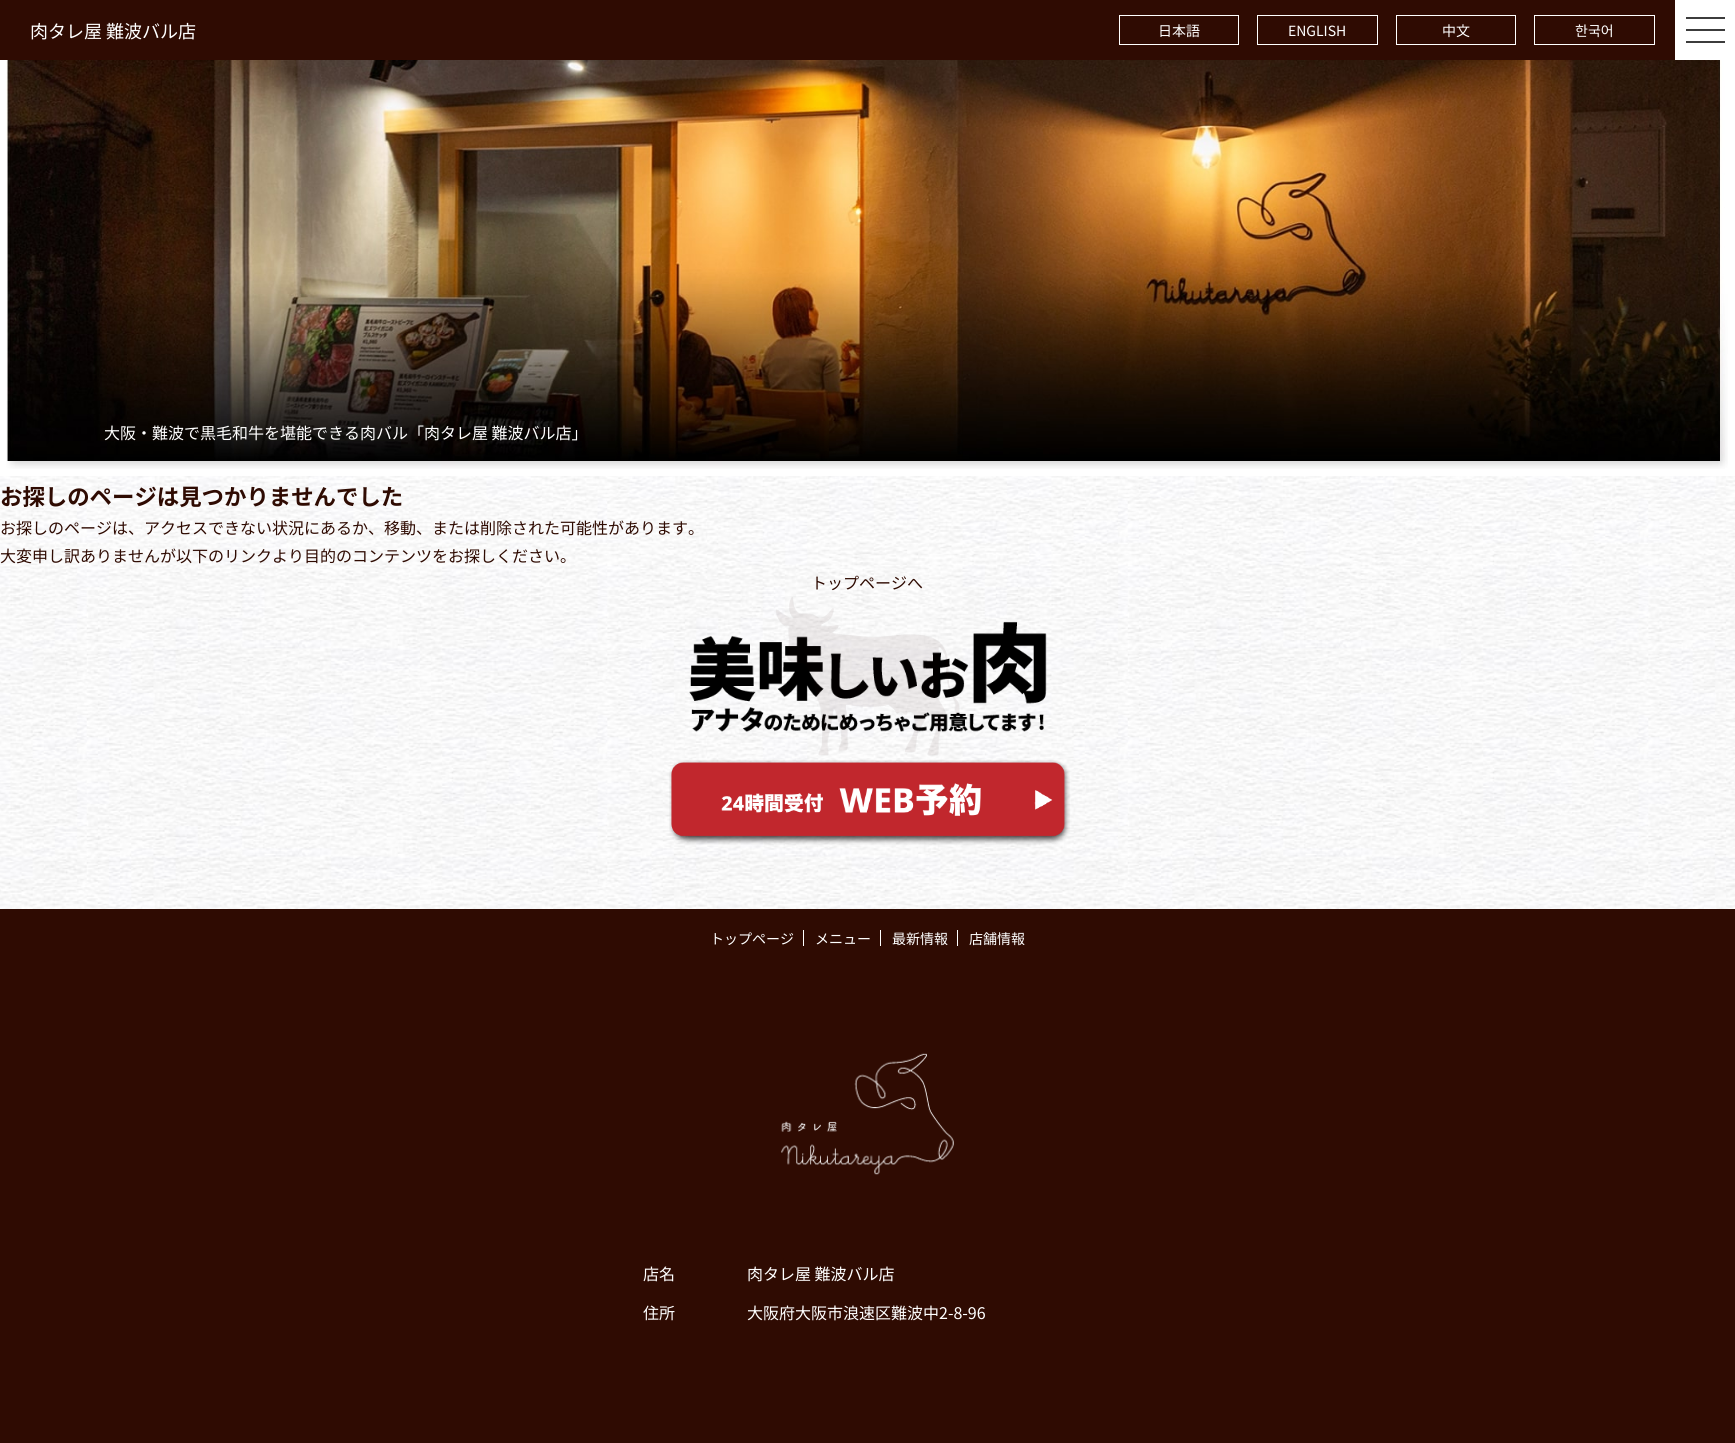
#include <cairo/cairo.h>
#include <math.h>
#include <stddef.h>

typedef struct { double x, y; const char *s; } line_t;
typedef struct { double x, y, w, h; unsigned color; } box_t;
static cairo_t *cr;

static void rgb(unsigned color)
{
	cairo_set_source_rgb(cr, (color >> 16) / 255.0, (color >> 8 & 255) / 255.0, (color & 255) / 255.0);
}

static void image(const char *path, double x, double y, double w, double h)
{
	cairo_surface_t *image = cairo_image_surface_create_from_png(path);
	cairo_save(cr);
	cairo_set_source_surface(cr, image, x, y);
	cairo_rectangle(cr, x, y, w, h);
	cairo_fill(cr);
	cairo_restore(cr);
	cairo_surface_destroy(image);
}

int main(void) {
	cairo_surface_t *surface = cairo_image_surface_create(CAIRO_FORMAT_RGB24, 1735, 1443);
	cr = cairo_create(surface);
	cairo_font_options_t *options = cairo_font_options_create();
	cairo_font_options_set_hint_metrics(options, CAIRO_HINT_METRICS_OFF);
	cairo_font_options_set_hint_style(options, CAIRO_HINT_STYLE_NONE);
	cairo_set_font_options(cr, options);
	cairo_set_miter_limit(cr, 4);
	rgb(0xffffff);
	cairo_paint(cr);
	rgb(0x2f0b02);
	cairo_rectangle(cr, 0, 0, 1675, 60);
	cairo_fill(cr);
	cairo_rectangle(cr, 1119.5, 15.5, 119, 29);
	rgb(0xffffff);
	cairo_set_line_width(cr, 1);
	cairo_stroke(cr);
	cairo_rectangle(cr, 1257.5, 15.5, 120, 29);
	cairo_stroke(cr);
	cairo_rectangle(cr, 1396.5, 15.5, 119, 29);
	cairo_stroke(cr);
	cairo_rectangle(cr, 1534.5, 15.5, 120, 29);
	cairo_stroke(cr);
	{
		static const box_t items[] = {
			{1686, 29, 39, 2, 0x3c3c3c},
			{1686, 17, 39, 2, 0x3c3c3c},
			{1686, 41, 39, 2, 0x3c3c3c},
		};
		for (size_t i = 0; i < sizeof items / sizeof *items; i++) {
			rgb(items[i].color);
			cairo_rectangle(cr, items[i].x, items[i].y, items[i].w, items[i].h);
			cairo_fill(cr);
		}
	}
	image("img/1.png", 6, 60, 1722, 409);
	image("img/2.png", 0, 476, 1735, 120);
	image("img/3.png", 0, 596, 1735, 313);
	image("img/4.png", 689, 597, 358, 159);
	image("img/5.png", 669, 760, 401, 85);
	{
		static const box_t items[] = {
			{0, 909, 1735, 534, 0x2f0b02},
			{803, 930, 1, 16, 0xffffff},
			{880, 930, 1, 16, 0xffffff},
			{957, 930, 1, 16, 0xffffff},
		};
		for (size_t i = 0; i < sizeof items / sizeof *items; i++) {
			rgb(items[i].color);
			cairo_rectangle(cr, items[i].x, items[i].y, items[i].w, items[i].h);
			cairo_fill(cr);
		}
	}
	image("img/6.png", 781, 1053, 173, 122);
	cairo_select_font_face(cr, "Noto Sans JP", CAIRO_FONT_SLANT_NORMAL, CAIRO_FONT_WEIGHT_NORMAL);
	cairo_set_font_size(cr, 18);
	cairo_move_to(cr, 30, 38);
	cairo_show_text(cr, "肉タレ屋 難波バル店");
	cairo_set_font_size(cr, 14);
	{
		static const line_t items[] = {
			{1158, 36, "日本語"},
			{1288, 36, "ENGLISH"},
			{1442, 36, "中文"},
		};
		for (size_t i = 0; i < sizeof items / sizeof *items; i++) {
			cairo_move_to(cr, items[i].x, items[i].y);
			cairo_show_text(cr, items[i].s);
		}
	}
	cairo_select_font_face(cr, "Noto Sans KR", CAIRO_FONT_SLANT_NORMAL, CAIRO_FONT_WEIGHT_NORMAL);
	cairo_move_to(cr, 1575, 36);
	cairo_show_text(cr, "한국어");
	cairo_select_font_face(cr, "Noto Sans JP", CAIRO_FONT_SLANT_NORMAL, CAIRO_FONT_WEIGHT_NORMAL);
	cairo_set_font_size(cr, 16);
	cairo_move_to(cr, 104, 439);
	cairo_show_text(cr, "大阪・難波で黒毛和牛を堪能できる肉バル「肉タレ屋 難波バル店」");
	cairo_select_font_face(cr, "Noto Sans JP", CAIRO_FONT_SLANT_NORMAL, CAIRO_FONT_WEIGHT_BOLD);
	cairo_set_font_size(cr, 22.4);
	rgb(0x2f0b02);
	cairo_move_to(cr, 0, 505);
	cairo_show_text(cr, "お探しのページは見つかりませんでした");
	cairo_select_font_face(cr, "Noto Sans JP", CAIRO_FONT_SLANT_NORMAL, CAIRO_FONT_WEIGHT_NORMAL);
	cairo_set_font_size(cr, 16);
	{
		static const line_t items[] = {
			{0, 534, "お探しのページは、アクセスできない状況にあるか、移動、または削除された可能性があります。"},
			{0, 562, "大変申し訳ありませんが以下のリンクより目的のコンテンツをお探しください。"},
			{811, 589, "トップページへ"},
		};
		for (size_t i = 0; i < sizeof items / sizeof *items; i++) {
			cairo_move_to(cr, items[i].x, items[i].y);
			cairo_show_text(cr, items[i].s);
		}
	}
	cairo_set_font_size(cr, 14);
	rgb(0xffffff);
	{
		static const line_t items[] = {
			{710, 944, "トップページ"},
			{815, 944, "メニュー"},
			{892, 944, "最新情報"},
			{969, 944, "店舗情報"},
		};
		for (size_t i = 0; i < sizeof items / sizeof *items; i++) {
			cairo_move_to(cr, items[i].x, items[i].y);
			cairo_show_text(cr, items[i].s);
		}
	}
	cairo_set_font_size(cr, 16);
	{
		static const line_t items[] = {
			{643, 1280, "店名"},
			{747, 1280, "肉タレ屋 難波バル店"},
			{643, 1319, "住所"},
			{747, 1319, "大阪府大阪市浪速区難波中2-8-96"},
		};
		for (size_t i = 0; i < sizeof items / sizeof *items; i++) {
			cairo_move_to(cr, items[i].x, items[i].y);
			cairo_show_text(cr, items[i].s);
		}
	}
	cairo_surface_write_to_png(surface, "page.png");
	cairo_font_options_destroy(options);
	cairo_destroy(cr);
	cairo_surface_destroy(surface);
	return 0;
}
